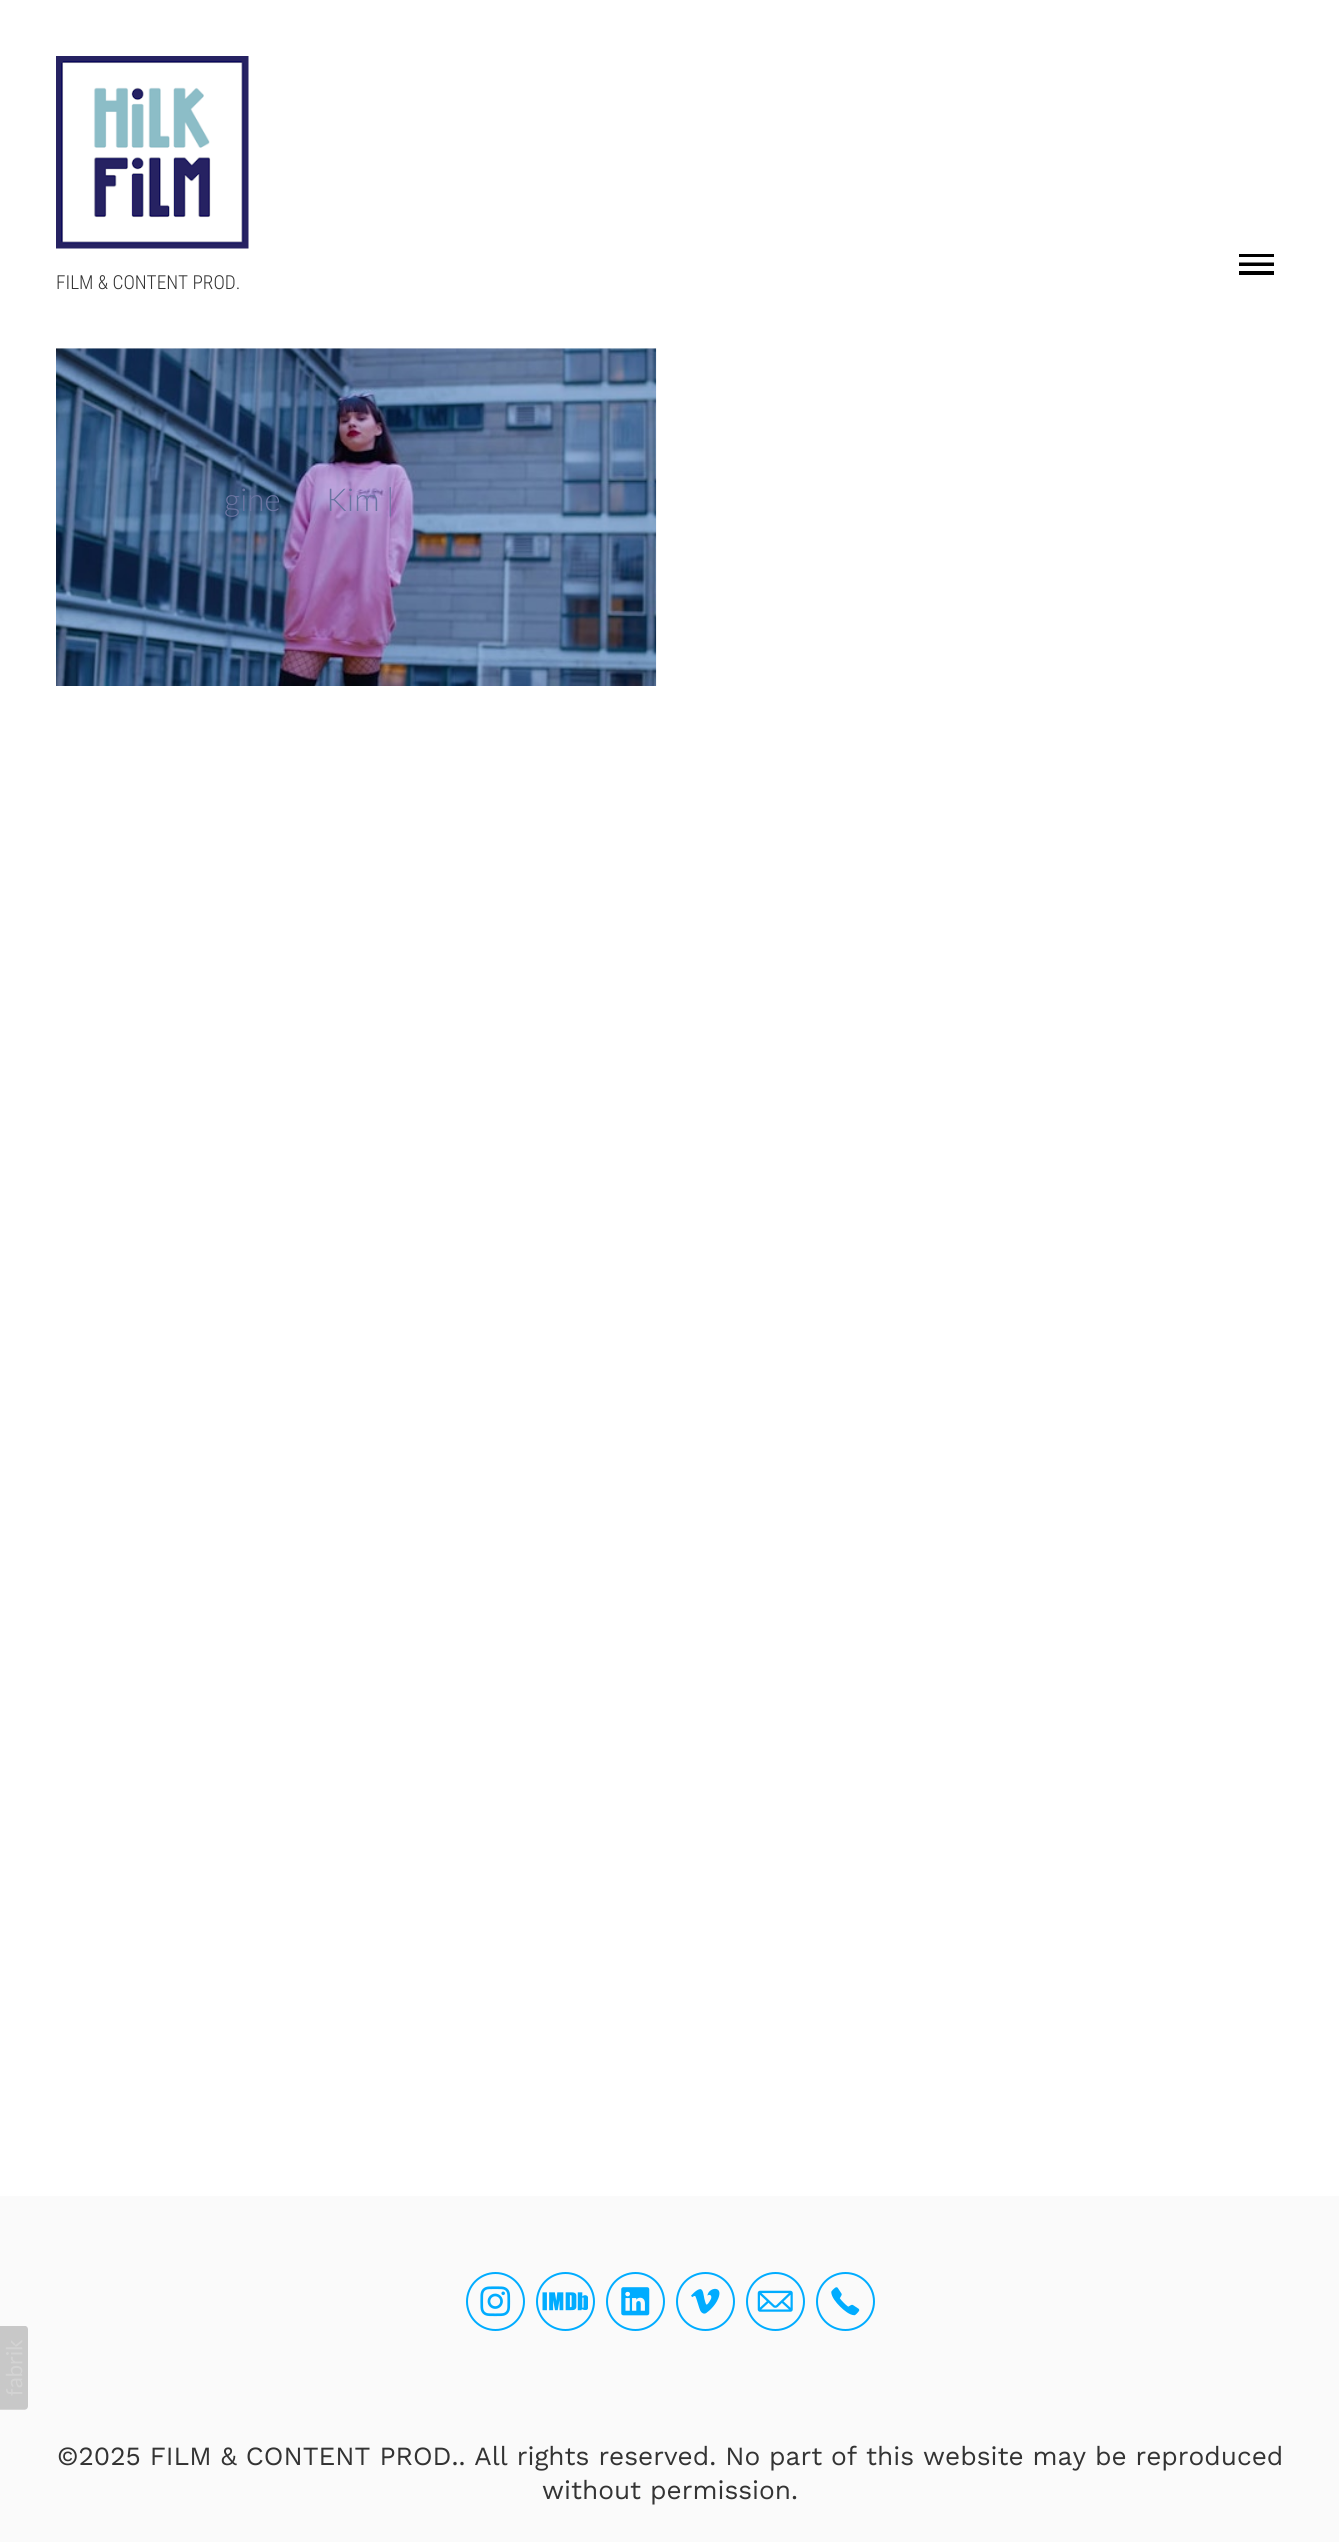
#include <cairo/cairo.h>
#include <math.h>
#include <stddef.h>

static cairo_t *cr;

static void rgb(unsigned color)
{
	cairo_set_source_rgb(cr, (color >> 16) / 255.0, (color >> 8 & 255) / 255.0, (color & 255) / 255.0);
}

static void image(const char *path, double x, double y, double w, double h)
{
	cairo_surface_t *image = cairo_image_surface_create_from_png(path);
	cairo_save(cr);
	cairo_set_source_surface(cr, image, x, y);
	cairo_rectangle(cr, x, y, w, h);
	cairo_fill(cr);
	cairo_restore(cr);
	cairo_surface_destroy(image);
}

int main(void) {
	cairo_surface_t *surface = cairo_image_surface_create(CAIRO_FORMAT_RGB24, 1339, 2542);
	cr = cairo_create(surface);
	cairo_font_options_t *options = cairo_font_options_create();
	cairo_font_options_set_hint_metrics(options, CAIRO_HINT_METRICS_OFF);
	cairo_font_options_set_hint_style(options, CAIRO_HINT_STYLE_NONE);
	cairo_set_font_options(cr, options);
	cairo_set_miter_limit(cr, 4);
	rgb(0xffffff);
	cairo_paint(cr);
	rgb(0xfafafa);
	cairo_rectangle(cr, 0, 2196, 1339, 346);
	cairo_fill(cr);
	image("img/1.png", 0, 2326, 28, 84);
	rgb(0x000000);
	cairo_new_path(cr);
	cairo_move_to(cr, 1239, 271);
	cairo_line_to(cr, 1274, 271);
	cairo_line_to(cr, 1274, 275);
	cairo_line_to(cr, 1239, 275);
	cairo_close_path(cr);
	cairo_move_to(cr, 1239, 262.5);
	cairo_line_to(cr, 1274, 262.5);
	cairo_line_to(cr, 1274, 266);
	cairo_line_to(cr, 1239, 266);
	cairo_close_path(cr);
	cairo_move_to(cr, 1239, 254);
	cairo_line_to(cr, 1274, 254);
	cairo_line_to(cr, 1274, 257);
	cairo_line_to(cr, 1239, 257);
	cairo_close_path(cr);
	cairo_fill(cr);
	image("img/2.png", 56, 56, 193, 193);
	rgb(0xfafafa);
	cairo_rectangle(cr, 56, 348, 600, 1);
	cairo_fill(cr);
	image("img/3.png", 56, 348, 601, 338);
	cairo_arc(cr, 495.5, 2301.5, 28.5, 0, 2 * M_PI);
	rgb(0x00acff);
	cairo_stroke(cr);
	image("img/4.png", 480, 2286, 31, 31);
	cairo_arc(cr, 565.5, 2301.5, 28.5, 0, 2 * M_PI);
	cairo_stroke(cr);
	image("img/5.png", 542, 2292, 46, 19);
	cairo_arc(cr, 635.5, 2301.5, 28.5, 0, 2 * M_PI);
	cairo_stroke(cr);
	image("img/6.png", 621, 2287, 29, 29);
	cairo_arc(cr, 705.5, 2301.5, 28.5, 0, 2 * M_PI);
	cairo_stroke(cr);
	image("img/7.png", 691, 2288, 29, 26);
	cairo_arc(cr, 775.5, 2301.5, 28.5, 0, 2 * M_PI);
	cairo_stroke(cr);
	image("img/8.png", 757, 2290, 36, 22);
	cairo_arc(cr, 845.5, 2301.5, 28.5, 0, 2 * M_PI);
	cairo_stroke(cr);
	image("img/9.png", 831, 2287, 29, 29);
	cairo_select_font_face(cr, "Roboto Condensed Light", CAIRO_FONT_SLANT_NORMAL, CAIRO_FONT_WEIGHT_NORMAL);
	cairo_set_font_size(cr, 19.25);
	rgb(0x333333);
	cairo_move_to(cr, 56, 289);
	cairo_show_text(cr, "FILM & CONTENT PROD.");
	cairo_select_font_face(cr, "Lato Light", CAIRO_FONT_SLANT_NORMAL, CAIRO_FONT_WEIGHT_NORMAL);
	cairo_set_font_size(cr, 31.5);
	rgb(0x6a74a1);
	cairo_move_to(cr, 224, 511);
	cairo_show_text(cr, "gine");
	cairo_move_to(cr, 326, 511);
	cairo_show_text(cr, "Kim |");
	cairo_select_font_face(cr, "Work Sans", CAIRO_FONT_SLANT_NORMAL, CAIRO_FONT_WEIGHT_NORMAL);
	cairo_set_font_size(cr, 26.25);
	rgb(0x333333);
	cairo_move_to(cr, 57, 2465);
	cairo_show_text(cr, "©2025 FILM & CONTENT PROD.. All rights reserved. No part of this website may be reproduced");
	cairo_move_to(cr, 542, 2499);
	cairo_show_text(cr, "without permission.");
	cairo_surface_write_to_png(surface, "page.png");
	cairo_font_options_destroy(options);
	cairo_destroy(cr);
	cairo_surface_destroy(surface);
	return 0;
}
